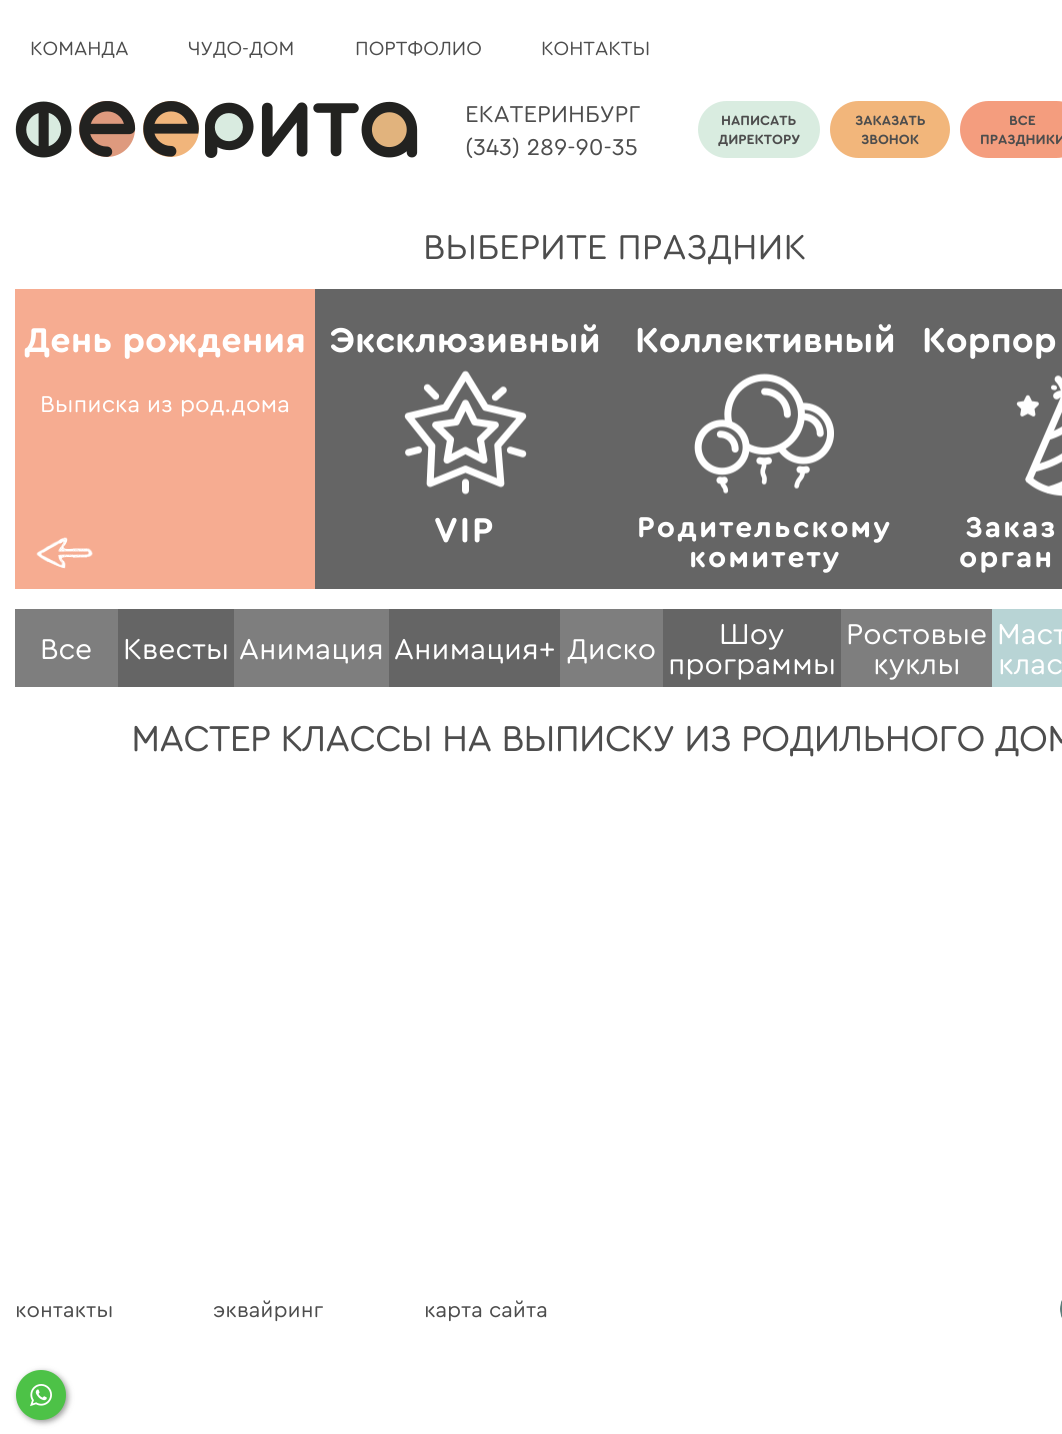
#include <cairo/cairo.h>
#include <math.h>
#include <stddef.h>

typedef struct { double x, y; const char *s; } line_t;
typedef struct { double x, y, w, h; unsigned color; } box_t;
static cairo_t *cr;

static void rgb(unsigned color)
{
	cairo_set_source_rgb(cr, (color >> 16) / 255.0, (color >> 8 & 255) / 255.0, (color & 255) / 255.0);
}

static void tracked(double x, double y, const char *s, double letter, double word)
{
	cairo_move_to(cr, x, y);
	while (*s) {
		char ch[5] = {0};
		int n = 0;
		do ch[n++] = *s++; while ((*s & 0xC0) == 0x80);
		cairo_show_text(cr, ch);
		cairo_rel_move_to(cr, letter + word * (*ch == ' '), 0);
	}
}

static void rrect(double x, double y, double w, double h, double r)
{
	cairo_new_sub_path(cr);
	cairo_arc(cr, x + w - r, y + h - r, r, 0, M_PI / 2);
	cairo_arc(cr, x + r, y + h - r, r, M_PI / 2, M_PI);
	cairo_arc(cr, x + r, y + r, r, M_PI, 1.5 * M_PI);
	cairo_arc(cr, x + w - r, y + r, r, 1.5 * M_PI, 2 * M_PI);
	cairo_close_path(cr);
}

static void soft_shadow(double x, double y, double w, double h, double r, double blur, double alpha)
{
	cairo_push_group_with_content(cr, CAIRO_CONTENT_ALPHA);
	cairo_set_operator(cr, CAIRO_OPERATOR_SOURCE);
	for (int i = 15; i >= -15 && fmin(w, h) + blur * i / 3 > 0; i -= 2) {
		double e = blur * i / 6;
		cairo_set_source_rgba(cr, 0, 0, 0, alpha * erfc((i - 1) / 8.5) / 2);
		rrect(x - e, y - e, w + 2 * e, h + 2 * e, fmax(0, fmin(r + e + blur * .6, fmin(w, h) / 2 + e)));
		cairo_fill(cr);
	}
	cairo_pattern_t *soft = cairo_pop_group(cr);
	cairo_mask(cr, soft);
	cairo_pattern_destroy(soft);
}

static void image(const char *path, double x, double y, double w, double h)
{
	cairo_surface_t *image = cairo_image_surface_create_from_png(path);
	cairo_save(cr);
	cairo_set_source_surface(cr, image, x, y);
	cairo_rectangle(cr, x, y, w, h);
	cairo_fill(cr);
	cairo_restore(cr);
	cairo_surface_destroy(image);
}

int main(void) {
	cairo_surface_t *surface = cairo_image_surface_create(CAIRO_FORMAT_RGB24, 1062, 1434);
	cr = cairo_create(surface);
	cairo_font_options_t *options = cairo_font_options_create();
	cairo_font_options_set_hint_metrics(options, CAIRO_HINT_METRICS_OFF);
	cairo_font_options_set_hint_style(options, CAIRO_HINT_STYLE_NONE);
	cairo_set_font_options(cr, options);
	cairo_set_miter_limit(cr, 4);
	rgb(0xffffff);
	cairo_paint(cr);
	image("img/1.png", 15, 101, 403, 57);
	rgb(0xd9ece0);
	rrect(698, 101, 122, 57, 28.5);
	cairo_fill(cr);
	rgb(0xf2b67b);
	rrect(830, 101, 120, 57, 28.5);
	cairo_fill(cr);
	rgb(0xf49d7e);
	rrect(960, 101, 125, 57, 28.5);
	cairo_fill(cr);
	rgb(0xf6ac91);
	cairo_rectangle(cr, 15, 289, 300, 300);
	cairo_fill(cr);
	image("img/2.png", 36, 537, 57, 32);
	rgb(0x656565);
	cairo_rectangle(cr, 315, 289, 747, 300);
	cairo_fill(cr);
	image("img/3.png", 404, 370, 123, 125);
	image("img/4.png", 694, 373, 140, 121);
	image("img/5.png", 1016, 375, 46, 122);
	{
		static const box_t items[] = {
			{15, 609, 103, 78, 0x7e7e7e},
			{118, 609, 116, 78, 0x656565},
			{234, 609, 155, 78, 0x7e7e7e},
			{389, 609, 171, 78, 0x656565},
			{560, 609, 103, 78, 0x7e7e7e},
			{663, 609, 178, 78, 0x656565},
			{841, 609, 151, 78, 0x7e7e7e},
			{992, 609, 70, 78, 0xb8d4d5},
		};
		for (size_t i = 0; i < sizeof items / sizeof *items; i++) {
			rgb(items[i].color);
			cairo_rectangle(cr, items[i].x, items[i].y, items[i].w, items[i].h);
			cairo_fill(cr);
		}
	}
	image("img/6.png", 1060, 1300, 2, 18);
	rgb(0x000000);
	soft_shadow(18, 1372, 50, 50, 25, 3, 0.4);
	rgb(0x4dc247);
	cairo_arc(cr, 41, 1395, 25, 0, 2 * M_PI);
	cairo_fill(cr);
	image("img/7.png", 30, 1384, 22, 23);
	cairo_select_font_face(cr, "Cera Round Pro", CAIRO_FONT_SLANT_NORMAL, CAIRO_FONT_WEIGHT_NORMAL);
	cairo_set_font_size(cr, 20);
	rgb(0x4d4d4d);
	{
		static const line_t items[] = {
			{30, 55, "КОМАНДА"},
			{188, 55, "ЧУДО-ДОМ"},
			{355, 55, "ПОРТФОЛИО"},
			{541, 55, "КОНТАКТЫ"},
		};
		for (size_t i = 0; i < sizeof items / sizeof *items; i++) {
			cairo_move_to(cr, items[i].x, items[i].y);
			cairo_show_text(cr, items[i].s);
		}
	}
	cairo_set_font_size(cr, 24);
	cairo_move_to(cr, 465, 122);
	cairo_show_text(cr, "ЕКАТЕРИНБУРГ");
	cairo_move_to(cr, 465, 155);
	cairo_show_text(cr, "(343) 289-90-35");
	cairo_select_font_face(cr, "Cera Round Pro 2", CAIRO_FONT_SLANT_NORMAL, CAIRO_FONT_WEIGHT_BOLD);
	cairo_set_font_size(cr, 14);
	{
		static const line_t items[] = {
			{721, 125, "НАПИСАТЬ"},
			{718, 144, "ДИРЕКТОРУ"},
			{855, 125, "ЗАКАЗАТЬ"},
			{861, 144, "ЗВОНОК"},
			{1009, 125, "ВСЕ"},
			{980, 144, "ПРАЗДНИКИ"},
		};
		for (size_t i = 0; i < sizeof items / sizeof *items; i++) {
			cairo_move_to(cr, items[i].x, items[i].y);
			cairo_show_text(cr, items[i].s);
		}
	}
	cairo_select_font_face(cr, "Cera Round Pro", CAIRO_FONT_SLANT_NORMAL, CAIRO_FONT_WEIGHT_NORMAL);
	cairo_set_font_size(cr, 36);
	cairo_move_to(cr, 423, 259);
	cairo_show_text(cr, "ВЫБЕРИТЕ ПРАЗДНИК");
	cairo_select_font_face(cr, "Cera Round Pro 2", CAIRO_FONT_SLANT_NORMAL, CAIRO_FONT_WEIGHT_BOLD);
	rgb(0xffffff);
	cairo_move_to(cr, 24, 352);
	cairo_show_text(cr, "День рождения");
	cairo_select_font_face(cr, "Cera Round Pro", CAIRO_FONT_SLANT_NORMAL, CAIRO_FONT_WEIGHT_NORMAL);
	cairo_set_font_size(cr, 24);
	cairo_move_to(cr, 40, 412);
	cairo_show_text(cr, "Выписка из род.дома");
	cairo_select_font_face(cr, "Cera Round Pro 2", CAIRO_FONT_SLANT_NORMAL, CAIRO_FONT_WEIGHT_BOLD);
	cairo_set_font_size(cr, 36);
	cairo_move_to(cr, 329, 352);
	cairo_show_text(cr, "Эксклюзивный");
	tracked(434, 542, "VIP", 2, 0);
	cairo_move_to(cr, 635, 352);
	cairo_show_text(cr, "Коллективный");
	cairo_set_font_size(cr, 30);
	tracked(637, 537, "Родительскому", 2, 0);
	tracked(689, 567, "комитету", 2, 0);
	cairo_set_font_size(cr, 36);
	cairo_move_to(cr, 922, 352);
	cairo_show_text(cr, "Корпор");
	cairo_set_font_size(cr, 30);
	tracked(965, 537, "Заказ", 2, 0);
	tracked(959, 567, "орган", 2, 0);
	cairo_select_font_face(cr, "Cera Round Pro", CAIRO_FONT_SLANT_NORMAL, CAIRO_FONT_WEIGHT_NORMAL);
	{
		static const line_t items[] = {
			{40, 659, "Все"},
			{123, 659, "Квесты"},
			{239, 659, "Анимация"},
			{394, 659, "Анимация+"},
			{567, 659, "Диско"},
			{719, 644, "Шоу"},
			{668, 674, "программы"},
			{846, 644, "Ростовые"},
			{873, 674, "куклы"},
			{997, 644, "Маст"},
			{998, 674, "клас"},
		};
		for (size_t i = 0; i < sizeof items / sizeof *items; i++) {
			cairo_move_to(cr, items[i].x, items[i].y);
			cairo_show_text(cr, items[i].s);
		}
	}
	cairo_select_font_face(cr, "Cera Round Pro", CAIRO_FONT_SLANT_NORMAL, CAIRO_FONT_WEIGHT_BOLD);
	cairo_set_font_size(cr, 36);
	rgb(0x4d4d4d);
	cairo_move_to(cr, 131, 751);
	cairo_show_text(cr, "МАСТЕР КЛАССЫ НА ВЫПИСКУ ИЗ РОДИЛЬНОГО ДОМ");
	cairo_select_font_face(cr, "Cera Round Pro", CAIRO_FONT_SLANT_NORMAL, CAIRO_FONT_WEIGHT_NORMAL);
	cairo_set_font_size(cr, 22);
	{
		static const line_t items[] = {
			{15, 1317, "контакты"},
			{213, 1317, "эквайринг"},
			{424, 1317, "карта сайта"},
		};
		for (size_t i = 0; i < sizeof items / sizeof *items; i++) {
			cairo_move_to(cr, items[i].x, items[i].y);
			cairo_show_text(cr, items[i].s);
		}
	}
	cairo_surface_write_to_png(surface, "page.png");
	cairo_font_options_destroy(options);
	cairo_destroy(cr);
	cairo_surface_destroy(surface);
	return 0;
}
